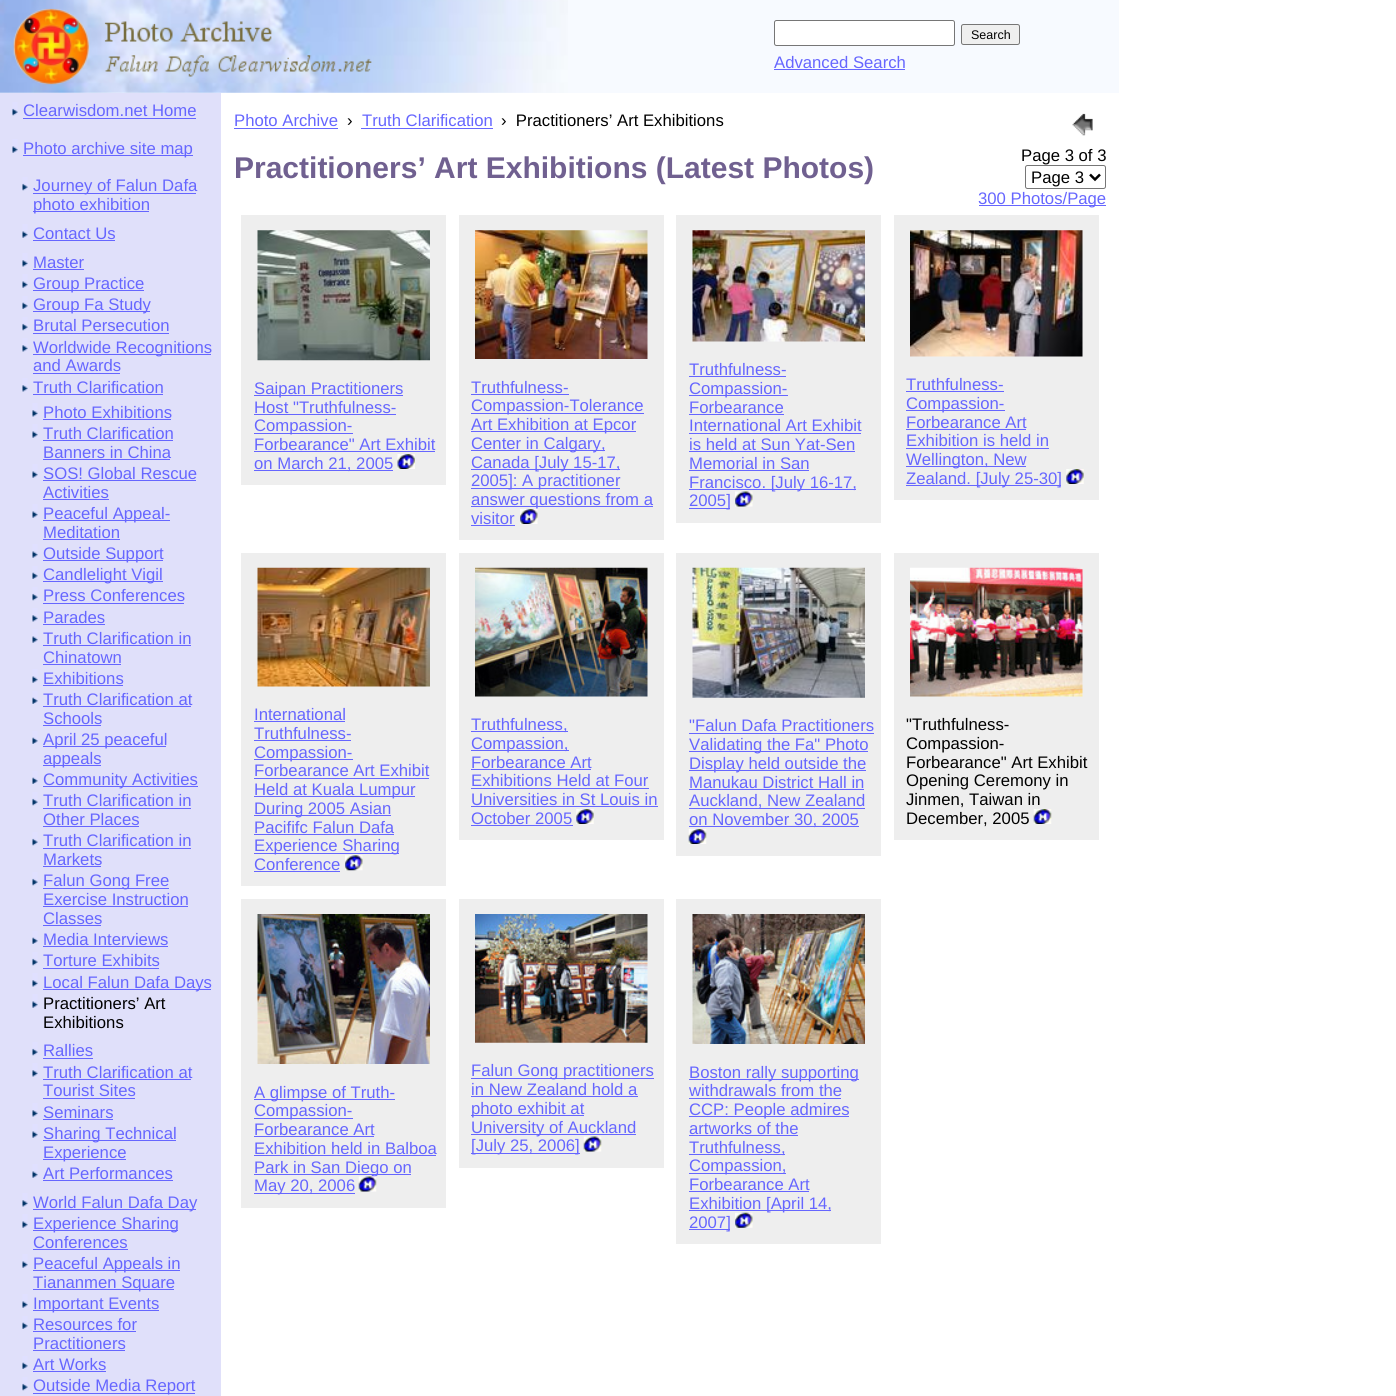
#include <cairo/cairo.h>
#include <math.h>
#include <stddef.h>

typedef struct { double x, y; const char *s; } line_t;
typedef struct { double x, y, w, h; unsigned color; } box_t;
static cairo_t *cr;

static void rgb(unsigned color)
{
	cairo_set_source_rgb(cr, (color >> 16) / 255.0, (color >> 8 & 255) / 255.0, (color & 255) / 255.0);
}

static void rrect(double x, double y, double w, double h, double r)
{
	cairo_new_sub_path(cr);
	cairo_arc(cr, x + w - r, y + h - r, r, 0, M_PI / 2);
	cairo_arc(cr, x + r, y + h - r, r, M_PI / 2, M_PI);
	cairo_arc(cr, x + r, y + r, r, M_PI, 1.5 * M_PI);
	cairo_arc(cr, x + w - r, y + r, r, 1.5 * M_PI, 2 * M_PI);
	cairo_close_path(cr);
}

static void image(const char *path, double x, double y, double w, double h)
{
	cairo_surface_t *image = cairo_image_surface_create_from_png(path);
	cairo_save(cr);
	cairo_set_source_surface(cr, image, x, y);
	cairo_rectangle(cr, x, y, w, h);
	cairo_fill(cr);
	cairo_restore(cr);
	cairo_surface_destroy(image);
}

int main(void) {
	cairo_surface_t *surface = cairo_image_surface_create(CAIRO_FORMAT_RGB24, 1396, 1396);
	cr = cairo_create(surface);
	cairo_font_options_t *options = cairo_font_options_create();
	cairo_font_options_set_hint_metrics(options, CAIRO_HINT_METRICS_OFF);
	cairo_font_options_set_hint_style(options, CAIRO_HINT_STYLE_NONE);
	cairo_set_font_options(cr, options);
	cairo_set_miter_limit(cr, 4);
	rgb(0xffffff);
	cairo_paint(cr);
	rgb(0xf7faff);
	cairo_rectangle(cr, 0, 0, 1119, 93);
	cairo_fill(cr);
	image("img/1.png", 0, 0, 568, 93);
	rgb(0xffffff);
	rrect(774.5, 20.5, 180, 25, 2);
	cairo_fill_preserve(cr);
	rgb(0x767676);
	cairo_set_line_width(cr, 1);
	cairo_stroke(cr);
	rgb(0xefefef);
	rrect(961.5, 24.5, 58, 20, 2);
	cairo_fill_preserve(cr);
	rgb(0x767676);
	cairo_stroke(cr);
	rgb(0x6666ff);
	cairo_rectangle(cr, 774, 69, 131, 1);
	cairo_fill(cr);
	rgb(0xe0e0fa);
	cairo_rectangle(cr, 0, 93, 221, 1303);
	cairo_fill(cr);
	image("img/2.png", 12, 102, 6, 14);
	rgb(0x6666ff);
	cairo_rectangle(cr, 23, 118, 173, 1);
	cairo_fill(cr);
	image("img/3.png", 12, 139, 6, 14);
	cairo_rectangle(cr, 23, 155, 170, 1);
	cairo_fill(cr);
	image("img/2.png", 22, 177, 6, 14);
	cairo_rectangle(cr, 33, 193, 163, 1);
	cairo_fill(cr);
	cairo_rectangle(cr, 33, 211, 116, 1);
	cairo_fill(cr);
	image("img/3.png", 22, 224, 6, 14);
	cairo_rectangle(cr, 33, 240, 82, 1);
	cairo_fill(cr);
	image("img/4.png", 22, 253, 6, 14);
	cairo_rectangle(cr, 33, 269, 51, 1);
	cairo_fill(cr);
	image("img/3.png", 22, 274, 6, 14);
	cairo_rectangle(cr, 33, 290, 111, 1);
	cairo_fill(cr);
	image("img/5.png", 22, 296, 6, 13);
	cairo_rectangle(cr, 33, 311, 117, 1);
	cairo_fill(cr);
	image("img/2.png", 22, 317, 6, 14);
	cairo_rectangle(cr, 33, 333, 136, 1);
	cairo_fill(cr);
	image("img/4.png", 22, 338, 6, 14);
	cairo_rectangle(cr, 33, 354, 178, 1);
	cairo_fill(cr);
	cairo_rectangle(cr, 33, 373, 87, 1);
	cairo_fill(cr);
	image("img/4.png", 22, 378, 6, 14);
	cairo_rectangle(cr, 33, 394, 130, 1);
	cairo_fill(cr);
	image("img/4.png", 32, 403, 6, 14);
	cairo_rectangle(cr, 43, 419, 128, 1);
	cairo_fill(cr);
	image("img/3.png", 32, 424, 6, 14);
	cairo_rectangle(cr, 43, 440, 130, 1);
	cairo_fill(cr);
	cairo_rectangle(cr, 43, 459, 127, 1);
	cairo_fill(cr);
	image("img/3.png", 32, 464, 6, 14);
	cairo_rectangle(cr, 43, 480, 153, 1);
	cairo_fill(cr);
	cairo_rectangle(cr, 43, 499, 66, 1);
	cairo_fill(cr);
	image("img/3.png", 32, 504, 6, 14);
	cairo_rectangle(cr, 43, 520, 127, 1);
	cairo_fill(cr);
	cairo_rectangle(cr, 43, 539, 77, 1);
	cairo_fill(cr);
	image("img/3.png", 32, 544, 6, 14);
	cairo_rectangle(cr, 43, 560, 120, 1);
	cairo_fill(cr);
	image("img/5.png", 32, 566, 6, 13);
	cairo_rectangle(cr, 43, 581, 120, 1);
	cairo_fill(cr);
	image("img/6.png", 32, 587, 6, 14);
	cairo_rectangle(cr, 43, 603, 141, 1);
	cairo_fill(cr);
	image("img/4.png", 32, 608, 6, 14);
	cairo_rectangle(cr, 43, 624, 62, 1);
	cairo_fill(cr);
	image("img/3.png", 32, 629, 6, 14);
	cairo_rectangle(cr, 43, 645, 148, 1);
	cairo_fill(cr);
	cairo_rectangle(cr, 43, 664, 78, 1);
	cairo_fill(cr);
	image("img/3.png", 32, 669, 6, 14);
	cairo_rectangle(cr, 43, 685, 80, 1);
	cairo_fill(cr);
	image("img/5.png", 32, 691, 6, 13);
	cairo_rectangle(cr, 43, 706, 148, 1);
	cairo_fill(cr);
	cairo_rectangle(cr, 43, 725, 58, 1);
	cairo_fill(cr);
	image("img/5.png", 32, 731, 6, 13);
	cairo_rectangle(cr, 43, 746, 123, 1);
	cairo_fill(cr);
	cairo_rectangle(cr, 43, 765, 58, 1);
	cairo_fill(cr);
	image("img/5.png", 32, 771, 6, 13);
	cairo_rectangle(cr, 43, 786, 155, 1);
	cairo_fill(cr);
	image("img/2.png", 32, 792, 6, 14);
	cairo_rectangle(cr, 43, 808, 148, 1);
	cairo_fill(cr);
	cairo_rectangle(cr, 43, 826, 96, 1);
	cairo_fill(cr);
	image("img/2.png", 32, 832, 6, 14);
	cairo_rectangle(cr, 43, 848, 148, 1);
	cairo_fill(cr);
	cairo_rectangle(cr, 43, 866, 58, 1);
	cairo_fill(cr);
	image("img/2.png", 32, 872, 6, 14);
	{
		static const box_t items[] = {
			{43, 888, 126, 1, 0x6666ff},
			{43, 906, 145, 1, 0x6666ff},
			{43, 925, 58, 1, 0x6666ff},
		};
		for (size_t i = 0; i < sizeof items / sizeof *items; i++) {
			rgb(items[i].color);
			cairo_rectangle(cr, items[i].x, items[i].y, items[i].w, items[i].h);
			cairo_fill(cr);
		}
	}
	image("img/5.png", 32, 931, 6, 13);
	cairo_rectangle(cr, 43, 946, 125, 1);
	cairo_fill(cr);
	image("img/2.png", 32, 952, 6, 14);
	cairo_rectangle(cr, 43, 968, 116, 1);
	cairo_fill(cr);
	image("img/4.png", 32, 973, 6, 14);
	cairo_rectangle(cr, 43, 989, 168, 1);
	cairo_fill(cr);
	image("img/3.png", 32, 994, 6, 14);
	image("img/2.png", 32, 1042, 6, 14);
	cairo_rectangle(cr, 43, 1058, 50, 1);
	cairo_fill(cr);
	image("img/4.png", 32, 1063, 6, 14);
	cairo_rectangle(cr, 43, 1079, 148, 1);
	cairo_fill(cr);
	cairo_rectangle(cr, 43, 1098, 92, 1);
	cairo_fill(cr);
	image("img/4.png", 32, 1103, 6, 14);
	cairo_rectangle(cr, 43, 1119, 70, 1);
	cairo_fill(cr);
	image("img/3.png", 32, 1124, 6, 14);
	cairo_rectangle(cr, 43, 1140, 133, 1);
	cairo_fill(cr);
	cairo_rectangle(cr, 43, 1159, 83, 1);
	cairo_fill(cr);
	image("img/7.png", 32, 1164, 6, 14);
	cairo_rectangle(cr, 43, 1180, 130, 1);
	cairo_fill(cr);
	image("img/4.png", 22, 1193, 6, 14);
	cairo_rectangle(cr, 33, 1209, 163, 1);
	cairo_fill(cr);
	image("img/3.png", 22, 1214, 6, 14);
	cairo_rectangle(cr, 33, 1230, 145, 1);
	cairo_fill(cr);
	cairo_rectangle(cr, 33, 1249, 95, 1);
	cairo_fill(cr);
	image("img/3.png", 22, 1254, 6, 14);
	cairo_rectangle(cr, 33, 1270, 147, 1);
	cairo_fill(cr);
	cairo_rectangle(cr, 33, 1289, 141, 1);
	cairo_fill(cr);
	image("img/3.png", 22, 1294, 6, 14);
	cairo_rectangle(cr, 33, 1310, 126, 1);
	cairo_fill(cr);
	image("img/5.png", 22, 1316, 6, 13);
	cairo_rectangle(cr, 33, 1331, 103, 1);
	cairo_fill(cr);
	cairo_rectangle(cr, 33, 1350, 92, 1);
	cairo_fill(cr);
	image("img/5.png", 22, 1356, 6, 13);
	cairo_rectangle(cr, 33, 1371, 73, 1);
	cairo_fill(cr);
	image("img/2.png", 22, 1377, 6, 14);
	{
		static const box_t items[] = {
			{33, 1393, 162, 1, 0x6666ff},
			{234, 128, 104, 1, 0x6666ff},
			{361, 128, 132, 1, 0x6666ff},
		};
		for (size_t i = 0; i < sizeof items / sizeof *items; i++) {
			rgb(items[i].color);
			cairo_rectangle(cr, items[i].x, items[i].y, items[i].w, items[i].h);
			cairo_fill(cr);
		}
	}
	image("img/8.png", 1072, 113, 21, 23);
	rrect(1025.5, 165.5, 80, 23, 2);
	rgb(0x767676);
	cairo_stroke(cr);
	cairo_new_path(cr);
	cairo_move_to(cr, 1090, 174.5);
	cairo_line_to(cr, 1095, 179.5);
	cairo_line_to(cr, 1100, 174.5);
	rgb(0x000000);
	cairo_set_line_width(cr, 2.5);
	cairo_stroke(cr);
	rgb(0x6666ff);
	cairo_rectangle(cr, 979, 205, 127, 1);
	cairo_fill(cr);
	rgb(0xeeeeee);
	cairo_rectangle(cr, 241, 215, 205, 270);
	cairo_fill(cr);
	image("img/9.png", 257, 230, 173, 131);
	{
		static const box_t items[] = {
			{254, 395, 149, 1, 0x6666ff},
			{254, 414, 142, 1, 0x6666ff},
			{254, 433, 99, 1, 0x6666ff},
			{254, 451, 181, 1, 0x6666ff},
			{254, 470, 139, 1, 0x6666ff},
		};
		for (size_t i = 0; i < sizeof items / sizeof *items; i++) {
			rgb(items[i].color);
			cairo_rectangle(cr, items[i].x, items[i].y, items[i].w, items[i].h);
			cairo_fill(cr);
		}
	}
	image("img/10.png", 397, 454, 18, 15);
	rgb(0xeeeeee);
	cairo_rectangle(cr, 459, 215, 205, 325);
	cairo_fill(cr);
	image("img/11.png", 475, 230, 173, 129);
	{
		static const box_t items[] = {
			{471, 394, 98, 1, 0x6666ff},
			{471, 413, 173, 1, 0x6666ff},
			{471, 431, 165, 1, 0x6666ff},
			{471, 450, 134, 1, 0x6666ff},
			{471, 469, 149, 1, 0x6666ff},
			{471, 488, 149, 1, 0x6666ff},
			{471, 506, 182, 1, 0x6666ff},
			{471, 525, 44, 1, 0x6666ff},
		};
		for (size_t i = 0; i < sizeof items / sizeof *items; i++) {
			rgb(items[i].color);
			cairo_rectangle(cr, items[i].x, items[i].y, items[i].w, items[i].h);
			cairo_fill(cr);
		}
	}
	image("img/12.png", 520, 509, 18, 15);
	rgb(0xeeeeee);
	cairo_rectangle(cr, 676, 215, 205, 308);
	cairo_fill(cr);
	image("img/13.png", 692, 230, 173, 112);
	{
		static const box_t items[] = {
			{689, 376, 97, 1, 0x6666ff},
			{689, 395, 99, 1, 0x6666ff},
			{689, 414, 95, 1, 0x6666ff},
			{689, 433, 172, 1, 0x6666ff},
			{689, 451, 166, 1, 0x6666ff},
			{689, 470, 120, 1, 0x6666ff},
			{689, 489, 167, 1, 0x6666ff},
			{689, 508, 41, 1, 0x6666ff},
			{894, 215, 205, 285, 0xeeeeee},
		};
		for (size_t i = 0; i < sizeof items / sizeof *items; i++) {
			rgb(items[i].color);
			cairo_rectangle(cr, items[i].x, items[i].y, items[i].w, items[i].h);
			cairo_fill(cr);
		}
	}
	image("img/15.png", 910, 230, 173, 127);
	{
		static const box_t items[] = {
			{906, 391, 98, 1, 0x6666ff},
			{906, 410, 99, 1, 0x6666ff},
			{906, 429, 120, 1, 0x6666ff},
			{906, 448, 143, 1, 0x6666ff},
			{906, 466, 120, 1, 0x6666ff},
			{906, 485, 155, 1, 0x6666ff},
		};
		for (size_t i = 0; i < sizeof items / sizeof *items; i++) {
			rgb(items[i].color);
			cairo_rectangle(cr, items[i].x, items[i].y, items[i].w, items[i].h);
			cairo_fill(cr);
		}
	}
	image("img/16.png", 1066, 469, 18, 15);
	rgb(0xeeeeee);
	cairo_rectangle(cr, 241, 553, 205, 333);
	cairo_fill(cr);
	image("img/17.png", 257, 567, 173, 120);
	{
		static const box_t items[] = {
			{254, 721, 91, 1, 0x6666ff},
			{254, 740, 97, 1, 0x6666ff},
			{254, 759, 99, 1, 0x6666ff},
			{254, 778, 175, 1, 0x6666ff},
			{254, 796, 161, 1, 0x6666ff},
			{254, 815, 137, 1, 0x6666ff},
			{254, 834, 140, 1, 0x6666ff},
			{254, 853, 145, 1, 0x6666ff},
			{254, 871, 86, 1, 0x6666ff},
		};
		for (size_t i = 0; i < sizeof items / sizeof *items; i++) {
			rgb(items[i].color);
			cairo_rectangle(cr, items[i].x, items[i].y, items[i].w, items[i].h);
			cairo_fill(cr);
		}
	}
	image("img/18.png", 345, 855, 18, 16);
	rgb(0xeeeeee);
	cairo_rectangle(cr, 459, 553, 205, 287);
	cairo_fill(cr);
	image("img/19.png", 475, 567, 173, 130);
	{
		static const box_t items[] = {
			{471, 731, 97, 1, 0x6666ff},
			{471, 750, 98, 1, 0x6666ff},
			{471, 769, 120, 1, 0x6666ff},
			{471, 788, 178, 1, 0x6666ff},
			{471, 806, 187, 1, 0x6666ff},
			{471, 825, 102, 1, 0x6666ff},
		};
		for (size_t i = 0; i < sizeof items / sizeof *items; i++) {
			rgb(items[i].color);
			cairo_rectangle(cr, items[i].x, items[i].y, items[i].w, items[i].h);
			cairo_fill(cr);
		}
	}
	image("img/16.png", 576, 809, 18, 15);
	rgb(0xeeeeee);
	cairo_rectangle(cr, 676, 553, 205, 303);
	cairo_fill(cr);
	image("img/20.png", 692, 567, 173, 131);
	{
		static const box_t items[] = {
			{689, 733, 185, 1, 0x6666ff},
			{689, 751, 179, 1, 0x6666ff},
			{689, 770, 177, 1, 0x6666ff},
			{689, 789, 175, 1, 0x6666ff},
			{689, 808, 176, 1, 0x6666ff},
			{689, 826, 170, 1, 0x6666ff},
		};
		for (size_t i = 0; i < sizeof items / sizeof *items; i++) {
			rgb(items[i].color);
			cairo_rectangle(cr, items[i].x, items[i].y, items[i].w, items[i].h);
			cairo_fill(cr);
		}
	}
	image("img/21.png", 688, 829, 19, 15);
	rgb(0xeeeeee);
	cairo_rectangle(cr, 894, 553, 205, 287);
	cairo_fill(cr);
	image("img/22.png", 910, 567, 173, 130);
	image("img/23.png", 1033, 809, 19, 15);
	cairo_rectangle(cr, 241, 899, 205, 309);
	cairo_fill(cr);
	image("img/24.png", 257, 914, 173, 150);
	{
		static const box_t items[] = {
			{254, 1099, 141, 1, 0x6666ff},
			{254, 1118, 99, 1, 0x6666ff},
			{254, 1136, 120, 1, 0x6666ff},
			{254, 1155, 182, 1, 0x6666ff},
			{254, 1174, 157, 1, 0x6666ff},
			{254, 1193, 101, 1, 0x6666ff},
			{459, 899, 205, 269, 0xeeeeee},
		};
		for (size_t i = 0; i < sizeof items / sizeof *items; i++) {
			rgb(items[i].color);
			cairo_rectangle(cr, items[i].x, items[i].y, items[i].w, items[i].h);
			cairo_fill(cr);
		}
	}
	image("img/26.png", 475, 914, 173, 129);
	{
		static const box_t items[] = {
			{471, 1078, 183, 1, 0x6666ff},
			{471, 1096, 167, 1, 0x6666ff},
			{471, 1115, 113, 1, 0x6666ff},
			{471, 1134, 165, 1, 0x6666ff},
			{471, 1153, 109, 1, 0x6666ff},
			{676, 899, 205, 345, 0xeeeeee},
		};
		for (size_t i = 0; i < sizeof items / sizeof *items; i++) {
			rgb(items[i].color);
			cairo_rectangle(cr, items[i].x, items[i].y, items[i].w, items[i].h);
			cairo_fill(cr);
		}
	}
	image("img/28.png", 692, 914, 173, 130);
	{
		static const box_t items[] = {
			{689, 1079, 170, 1, 0x6666ff},
			{689, 1098, 152, 1, 0x6666ff},
			{689, 1116, 160, 1, 0x6666ff},
			{689, 1135, 109, 1, 0x6666ff},
			{689, 1154, 96, 1, 0x6666ff},
			{689, 1173, 97, 1, 0x6666ff},
			{689, 1191, 120, 1, 0x6666ff},
			{689, 1210, 142, 1, 0x6666ff},
			{689, 1229, 41, 1, 0x6666ff},
		};
		for (size_t i = 0; i < sizeof items / sizeof *items; i++) {
			rgb(items[i].color);
			cairo_rectangle(cr, items[i].x, items[i].y, items[i].w, items[i].h);
			cairo_fill(cr);
		}
	}
	cairo_select_font_face(cr, "Liberation Sans", CAIRO_FONT_SLANT_NORMAL, CAIRO_FONT_WEIGHT_NORMAL);
	cairo_set_font_size(cr, 12.5);
	rgb(0x000000);
	cairo_move_to(cr, 971, 39);
	cairo_show_text(cr, "Search");
	cairo_set_font_size(cr, 16.7);
	rgb(0x6666ff);
	{
		static const line_t items[] = {
			{774, 68, "Advanced Search"},
			{23, 116, "Clearwisdom.net Home"},
			{23, 154, "Photo archive site map"},
			{33, 191, "Journey of Falun Dafa"},
			{33, 210, "photo exhibition"},
			{33, 239, "Contact Us"},
			{33, 268, "Master"},
			{33, 289, "Group Practice"},
			{33, 310, "Group Fa Study"},
			{33, 331, "Brutal Persecution"},
			{33, 353, "Worldwide Recognitions"},
			{33, 371, "and Awards"},
			{33, 393, "Truth Clarification"},
			{43, 418, "Photo Exhibitions"},
			{43, 439, "Truth Clarification"},
			{43, 458, "Banners in China"},
			{43, 479, "SOS! Global Rescue"},
			{43, 498, "Activities"},
			{43, 519, "Peaceful Appeal-"},
			{43, 538, "Meditation"},
			{43, 559, "Outside Support"},
			{43, 580, "Candlelight Vigil"},
			{43, 601, "Press Conferences"},
			{43, 623, "Parades"},
			{43, 644, "Truth Clarification in"},
			{43, 663, "Chinatown"},
			{43, 684, "Exhibitions"},
			{43, 705, "Truth Clarification at"},
			{43, 724, "Schools"},
			{43, 745, "April 25 peaceful"},
			{43, 764, "appeals"},
			{43, 785, "Community Activities"},
			{43, 806, "Truth Clarification in"},
			{43, 825, "Other Places"},
			{43, 846, "Truth Clarification in"},
			{43, 865, "Markets"},
			{43, 886, "Falun Gong Free"},
			{43, 905, "Exercise Instruction"},
			{43, 924, "Classes"},
			{43, 945, "Media Interviews"},
			{43, 966, "Torture Exhibits"},
			{43, 988, "Local Falun Dafa Days"},
		};
		for (size_t i = 0; i < sizeof items / sizeof *items; i++) {
			cairo_move_to(cr, items[i].x, items[i].y);
			cairo_show_text(cr, items[i].s);
		}
	}
	rgb(0x000000);
	cairo_move_to(cr, 43, 1009);
	cairo_show_text(cr, "Practitioners’ Art");
	cairo_move_to(cr, 43, 1028);
	cairo_show_text(cr, "Exhibitions");
	rgb(0x6666ff);
	{
		static const line_t items[] = {
			{43, 1056, "Rallies"},
			{43, 1078, "Truth Clarification at"},
			{43, 1096, "Tourist Sites"},
			{43, 1118, "Seminars"},
			{43, 1139, "Sharing Technical"},
			{43, 1158, "Experience"},
			{43, 1179, "Art Performances"},
			{33, 1208, "World Falun Dafa Day"},
			{33, 1229, "Experience Sharing"},
			{33, 1248, "Conferences"},
			{33, 1269, "Peaceful Appeals in"},
			{33, 1288, "Tiananmen Square"},
			{33, 1309, "Important Events"},
			{33, 1330, "Resources for"},
			{33, 1349, "Practitioners"},
			{33, 1370, "Art Works"},
			{33, 1391, "Outside Media Report"},
			{234, 126, "Photo Archive"},
		};
		for (size_t i = 0; i < sizeof items / sizeof *items; i++) {
			cairo_move_to(cr, items[i].x, items[i].y);
			cairo_show_text(cr, items[i].s);
		}
	}
	rgb(0x000000);
	cairo_move_to(cr, 347, 126);
	cairo_show_text(cr, "›");
	rgb(0x6666ff);
	cairo_move_to(cr, 362, 126);
	cairo_show_text(cr, "Truth Clarification");
	rgb(0x000000);
	cairo_move_to(cr, 501, 126);
	cairo_show_text(cr, "›  Practitioners’ Art Exhibitions");
	cairo_select_font_face(cr, "Liberation Sans", CAIRO_FONT_SLANT_NORMAL, CAIRO_FONT_WEIGHT_BOLD);
	cairo_set_font_size(cr, 30);
	rgb(0x706090);
	cairo_move_to(cr, 234, 178);
	cairo_show_text(cr, "Practitioners’ Art Exhibitions (Latest Photos)");
	cairo_select_font_face(cr, "Liberation Sans", CAIRO_FONT_SLANT_NORMAL, CAIRO_FONT_WEIGHT_NORMAL);
	cairo_set_font_size(cr, 16.7);
	rgb(0x000000);
	cairo_move_to(cr, 1021, 161);
	cairo_show_text(cr, "Page 3 of 3");
	cairo_move_to(cr, 1031, 183);
	cairo_show_text(cr, "Page 3");
	rgb(0x6666ff);
	{
		static const line_t items[] = {
			{978, 204, "300 Photos/Page"},
			{254, 394, "Saipan Practitioners"},
			{254, 413, "Host \"Truthfulness-"},
			{254, 431, "Compassion-"},
			{254, 450, "Forbearance\" Art Exhibit"},
			{254, 469, "on March 21, 2005"},
			{471, 393, "Truthfulness-"},
			{471, 411, "Compassion-Tolerance"},
			{471, 430, "Art Exhibition at Epcor"},
			{471, 449, "Center in Calgary,"},
			{471, 468, "Canada [July 15-17,"},
			{471, 486, "2005]: A practitioner"},
			{471, 505, "answer questions from a"},
			{471, 524, "visitor"},
			{689, 375, "Truthfulness-"},
			{689, 394, "Compassion-"},
			{689, 413, "Forbearance"},
			{689, 431, "International Art Exhibit"},
			{689, 450, "is held at Sun Yat-Sen"},
			{689, 469, "Memorial in San"},
			{689, 488, "Francisco. [July 16-17,"},
			{689, 506, "2005]"},
		};
		for (size_t i = 0; i < sizeof items / sizeof *items; i++) {
			cairo_move_to(cr, items[i].x, items[i].y);
			cairo_show_text(cr, items[i].s);
		}
	}
	image("img/14.png", 735, 491, 18, 16);
	{
		static const line_t items[] = {
			{906, 390, "Truthfulness-"},
			{906, 409, "Compassion-"},
			{906, 428, "Forbearance Art"},
			{906, 446, "Exhibition is held in"},
			{906, 465, "Wellington, New"},
			{906, 484, "Zealand. [July 25-30]"},
			{254, 720, "International"},
			{254, 739, "Truthfulness-"},
			{254, 758, "Compassion-"},
			{254, 776, "Forbearance Art Exhibit"},
			{254, 795, "Held at Kuala Lumpur"},
			{254, 814, "During 2005 Asian"},
			{254, 833, "Pacififc Falun Dafa"},
			{254, 851, "Experience Sharing"},
			{254, 870, "Conference"},
			{471, 730, "Truthfulness,"},
			{471, 749, "Compassion,"},
			{471, 768, "Forbearance Art"},
			{471, 786, "Exhibitions Held at Four"},
			{471, 805, "Universities in St Louis in"},
			{471, 824, "October 2005"},
			{689, 731, "\"Falun Dafa Practitioners"},
			{689, 750, "Validating the Fa\" Photo"},
			{689, 769, "Display held outside the"},
			{689, 788, "Manukau District Hall in"},
			{689, 806, "Auckland, New Zealand"},
			{689, 825, "on November 30, 2005"},
		};
		for (size_t i = 0; i < sizeof items / sizeof *items; i++) {
			cairo_move_to(cr, items[i].x, items[i].y);
			cairo_show_text(cr, items[i].s);
		}
	}
	rgb(0x000000);
	{
		static const line_t items[] = {
			{906, 730, "\"Truthfulness-"},
			{906, 749, "Compassion-"},
			{906, 768, "Forbearance\" Art Exhibit"},
			{906, 786, "Opening Ceremony in"},
			{906, 805, "Jinmen, Taiwan in"},
			{906, 824, "December, 2005"},
		};
		for (size_t i = 0; i < sizeof items / sizeof *items; i++) {
			cairo_move_to(cr, items[i].x, items[i].y);
			cairo_show_text(cr, items[i].s);
		}
	}
	rgb(0x6666ff);
	{
		static const line_t items[] = {
			{254, 1098, "A glimpse of Truth-"},
			{254, 1116, "Compassion-"},
			{254, 1135, "Forbearance Art"},
			{254, 1154, "Exhibition held in Balboa"},
			{254, 1173, "Park in San Diego on"},
			{254, 1191, "May 20, 2006"},
		};
		for (size_t i = 0; i < sizeof items / sizeof *items; i++) {
			cairo_move_to(cr, items[i].x, items[i].y);
			cairo_show_text(cr, items[i].s);
		}
	}
	image("img/25.png", 358, 1176, 19, 16);
	{
		static const line_t items[] = {
			{471, 1076, "Falun Gong practitioners"},
			{471, 1095, "in New Zealand hold a"},
			{471, 1114, "photo exhibit at"},
			{471, 1133, "University of Auckland"},
			{471, 1151, "[July 25, 2006]"},
		};
		for (size_t i = 0; i < sizeof items / sizeof *items; i++) {
			cairo_move_to(cr, items[i].x, items[i].y);
			cairo_show_text(cr, items[i].s);
		}
	}
	image("img/27.png", 583, 1136, 19, 16);
	{
		static const line_t items[] = {
			{689, 1078, "Boston rally supporting"},
			{689, 1096, "withdrawals from the"},
			{689, 1115, "CCP: People admires"},
			{689, 1134, "artworks of the"},
			{689, 1153, "Truthfulness,"},
			{689, 1171, "Compassion,"},
			{689, 1190, "Forbearance Art"},
			{689, 1209, "Exhibition [April 14,"},
			{689, 1228, "2007]"},
		};
		for (size_t i = 0; i < sizeof items / sizeof *items; i++) {
			cairo_move_to(cr, items[i].x, items[i].y);
			cairo_show_text(cr, items[i].s);
		}
	}
	image("img/29.png", 735, 1212, 18, 16);
	cairo_surface_write_to_png(surface, "page.png");
	cairo_font_options_destroy(options);
	cairo_destroy(cr);
	cairo_surface_destroy(surface);
	return 0;
}
